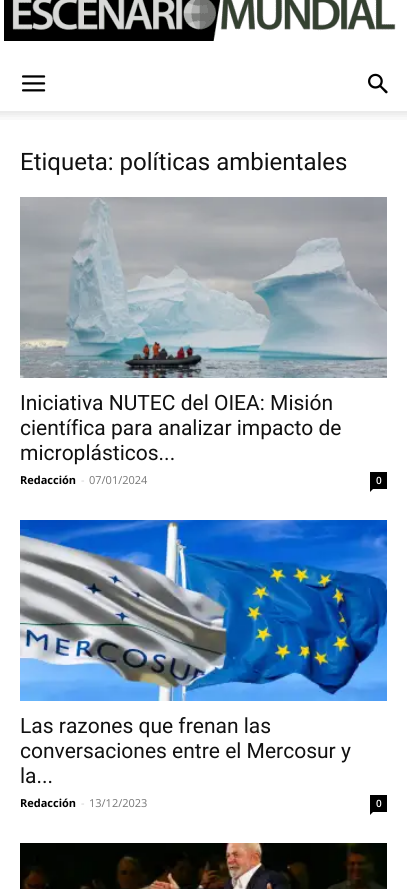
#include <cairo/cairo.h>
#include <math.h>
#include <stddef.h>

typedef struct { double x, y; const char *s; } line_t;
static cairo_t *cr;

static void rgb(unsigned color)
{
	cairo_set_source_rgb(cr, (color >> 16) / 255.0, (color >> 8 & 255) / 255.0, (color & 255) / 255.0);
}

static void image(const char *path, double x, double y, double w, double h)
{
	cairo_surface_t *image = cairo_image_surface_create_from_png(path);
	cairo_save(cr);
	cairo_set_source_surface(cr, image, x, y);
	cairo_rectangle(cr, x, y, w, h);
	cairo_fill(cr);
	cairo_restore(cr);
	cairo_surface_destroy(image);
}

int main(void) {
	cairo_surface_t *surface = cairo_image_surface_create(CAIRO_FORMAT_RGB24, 407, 889);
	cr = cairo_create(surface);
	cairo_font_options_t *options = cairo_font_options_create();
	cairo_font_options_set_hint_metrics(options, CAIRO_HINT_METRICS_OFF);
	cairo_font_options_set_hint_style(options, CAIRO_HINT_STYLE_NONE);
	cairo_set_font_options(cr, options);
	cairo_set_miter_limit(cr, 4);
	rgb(0xffffff);
	cairo_paint(cr);
	image("img/1.png", 4, 0, 392, 41);
	image("img/2.png", 22, 75, 24, 17);
	image("img/3.png", 368, 73, 20, 21);
	image("img/4.png", 0, 111, 407, 9);
	image("img/5.png", 20, 197, 367, 181);
	rgb(0x000000);
	cairo_rectangle(cr, 370, 472, 17, 17);
	cairo_fill(cr);
	cairo_new_path(cr);
	cairo_move_to(cr, 370, 489);
	cairo_line_to(cr, 373, 489);
	cairo_line_to(cr, 370, 492);
	cairo_close_path(cr);
	cairo_fill(cr);
	image("img/6.png", 20, 520, 367, 181);
	cairo_rectangle(cr, 370, 795, 17, 17);
	cairo_fill(cr);
	cairo_new_path(cr);
	cairo_move_to(cr, 370, 812);
	cairo_line_to(cr, 373, 812);
	cairo_line_to(cr, 370, 815);
	cairo_close_path(cr);
	cairo_fill(cr);
	image("img/7.png", 20, 843, 367, 46);
	cairo_select_font_face(cr, "Roboto", CAIRO_FONT_SLANT_NORMAL, CAIRO_FONT_WEIGHT_NORMAL);
	cairo_set_font_size(cr, 24);
	rgb(0x111111);
	cairo_move_to(cr, 20, 170);
	cairo_show_text(cr, "Etiqueta: políticas ambientales");
	cairo_set_font_size(cr, 21);
	{
		static const line_t items[] = {
			{20, 410, "Iniciativa NUTEC del OIEA: Misión"},
			{20, 435, "científica para analizar impacto de"},
			{20, 460, "microplásticos..."},
		};
		for (size_t i = 0; i < sizeof items / sizeof *items; i++) {
			cairo_move_to(cr, items[i].x, items[i].y);
			cairo_show_text(cr, items[i].s);
		}
	}
	cairo_select_font_face(cr, "Open Sans", CAIRO_FONT_SLANT_NORMAL, CAIRO_FONT_WEIGHT_BOLD);
	cairo_set_font_size(cr, 11);
	rgb(0x000000);
	cairo_move_to(cr, 20, 484);
	cairo_show_text(cr, "Redacción");
	cairo_select_font_face(cr, "Open Sans", CAIRO_FONT_SLANT_NORMAL, CAIRO_FONT_WEIGHT_NORMAL);
	rgb(0xcccccc);
	cairo_move_to(cr, 81, 484);
	cairo_show_text(cr, "-");
	rgb(0x767676);
	cairo_move_to(cr, 89, 484);
	cairo_show_text(cr, "07/01/2024");
	cairo_select_font_face(cr, "Open Sans SemiBold", CAIRO_FONT_SLANT_NORMAL, CAIRO_FONT_WEIGHT_NORMAL);
	cairo_set_font_size(cr, 10);
	rgb(0xffffff);
	cairo_move_to(cr, 376, 484);
	cairo_show_text(cr, "0");
	cairo_select_font_face(cr, "Roboto", CAIRO_FONT_SLANT_NORMAL, CAIRO_FONT_WEIGHT_NORMAL);
	cairo_set_font_size(cr, 21);
	rgb(0x111111);
	{
		static const line_t items[] = {
			{20, 733, "Las razones que frenan las"},
			{20, 758, "conversaciones entre el Mercosur y"},
			{20, 783, "la..."},
		};
		for (size_t i = 0; i < sizeof items / sizeof *items; i++) {
			cairo_move_to(cr, items[i].x, items[i].y);
			cairo_show_text(cr, items[i].s);
		}
	}
	cairo_select_font_face(cr, "Open Sans", CAIRO_FONT_SLANT_NORMAL, CAIRO_FONT_WEIGHT_BOLD);
	cairo_set_font_size(cr, 11);
	rgb(0x000000);
	cairo_move_to(cr, 20, 807);
	cairo_show_text(cr, "Redacción");
	cairo_select_font_face(cr, "Open Sans", CAIRO_FONT_SLANT_NORMAL, CAIRO_FONT_WEIGHT_NORMAL);
	rgb(0xcccccc);
	cairo_move_to(cr, 81, 807);
	cairo_show_text(cr, "-");
	rgb(0x767676);
	cairo_move_to(cr, 89, 807);
	cairo_show_text(cr, "13/12/2023");
	cairo_select_font_face(cr, "Open Sans SemiBold", CAIRO_FONT_SLANT_NORMAL, CAIRO_FONT_WEIGHT_NORMAL);
	cairo_set_font_size(cr, 10);
	rgb(0xffffff);
	cairo_move_to(cr, 376, 807);
	cairo_show_text(cr, "0");
	cairo_surface_write_to_png(surface, "page.png");
	cairo_font_options_destroy(options);
	cairo_destroy(cr);
	cairo_surface_destroy(surface);
	return 0;
}
